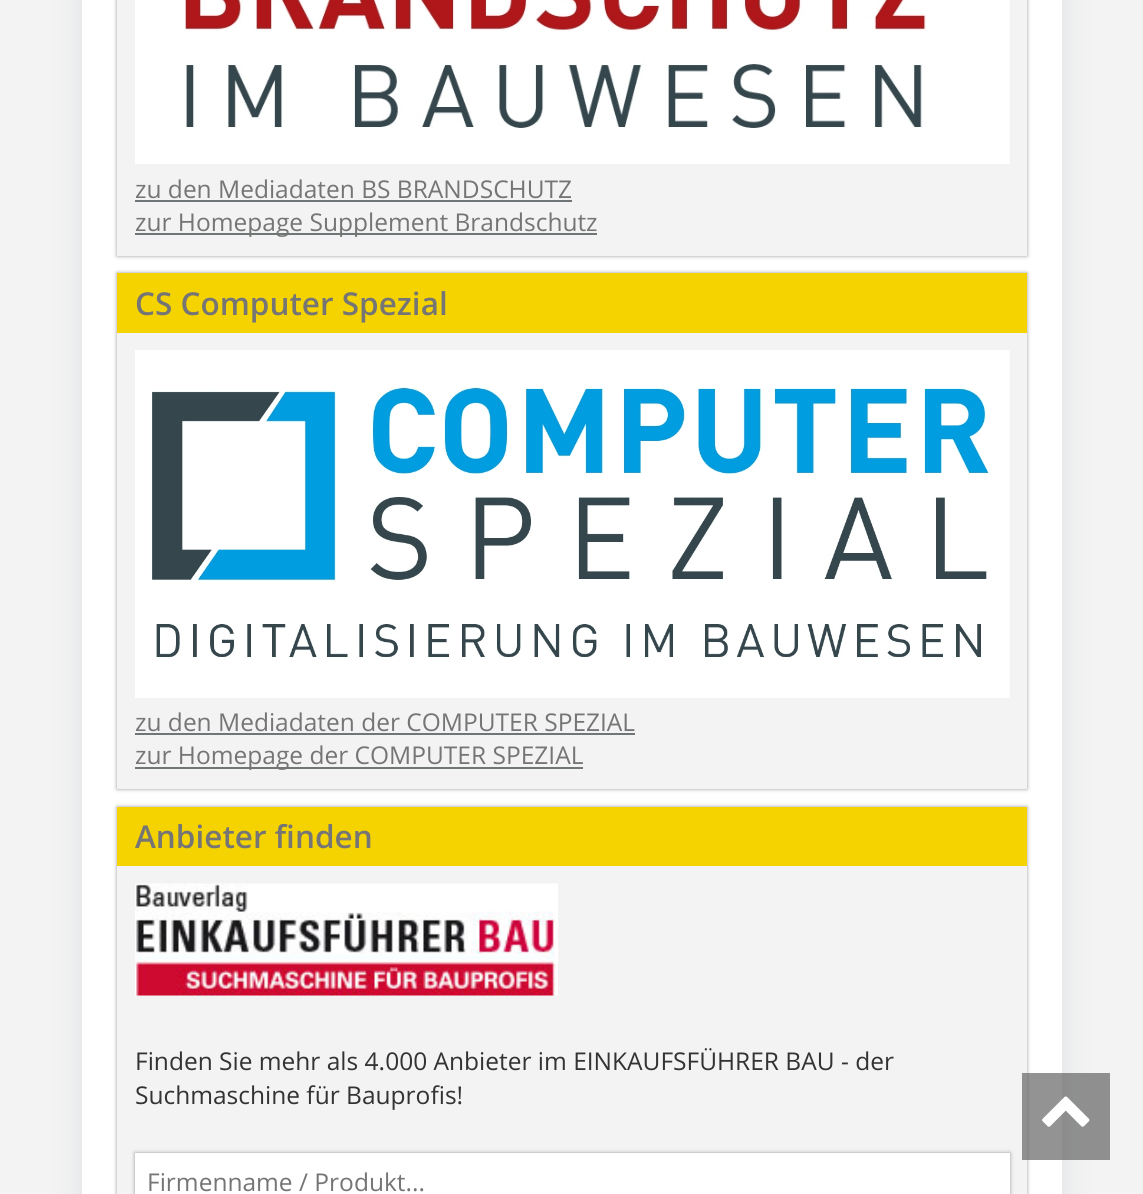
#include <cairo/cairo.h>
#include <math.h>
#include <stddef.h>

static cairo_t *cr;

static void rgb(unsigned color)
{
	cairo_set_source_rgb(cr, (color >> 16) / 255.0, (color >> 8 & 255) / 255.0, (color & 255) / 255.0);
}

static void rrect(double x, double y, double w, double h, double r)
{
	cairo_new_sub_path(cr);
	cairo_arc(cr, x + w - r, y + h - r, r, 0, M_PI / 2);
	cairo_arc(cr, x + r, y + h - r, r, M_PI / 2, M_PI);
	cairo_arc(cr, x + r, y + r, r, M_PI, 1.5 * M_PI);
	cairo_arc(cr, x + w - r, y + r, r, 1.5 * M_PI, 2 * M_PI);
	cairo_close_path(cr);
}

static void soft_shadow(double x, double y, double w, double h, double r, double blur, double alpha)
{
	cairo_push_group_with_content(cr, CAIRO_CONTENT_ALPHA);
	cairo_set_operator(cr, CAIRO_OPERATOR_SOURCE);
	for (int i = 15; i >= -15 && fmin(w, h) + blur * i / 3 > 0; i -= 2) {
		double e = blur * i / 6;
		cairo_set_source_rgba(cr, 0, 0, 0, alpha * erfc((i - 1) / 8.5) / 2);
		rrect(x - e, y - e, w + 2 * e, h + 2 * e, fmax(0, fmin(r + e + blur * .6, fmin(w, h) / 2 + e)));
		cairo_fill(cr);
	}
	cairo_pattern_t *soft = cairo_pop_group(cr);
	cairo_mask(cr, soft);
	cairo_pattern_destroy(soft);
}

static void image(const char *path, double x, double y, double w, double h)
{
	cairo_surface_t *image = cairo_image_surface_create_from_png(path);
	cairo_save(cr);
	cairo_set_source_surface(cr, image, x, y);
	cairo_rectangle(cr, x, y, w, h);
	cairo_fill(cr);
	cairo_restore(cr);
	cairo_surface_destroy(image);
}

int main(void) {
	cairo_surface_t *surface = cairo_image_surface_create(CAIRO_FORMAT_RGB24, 1143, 1194);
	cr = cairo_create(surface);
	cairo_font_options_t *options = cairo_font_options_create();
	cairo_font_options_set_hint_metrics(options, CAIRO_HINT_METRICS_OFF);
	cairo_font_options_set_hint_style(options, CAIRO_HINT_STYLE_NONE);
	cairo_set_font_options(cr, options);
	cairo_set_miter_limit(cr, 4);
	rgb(0xf3f3f3);
	cairo_paint(cr);
	rgb(0x677a8d);
	soft_shadow(82, -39, 980, 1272, 0, 13, 0.17);
	rgb(0xffffff);
	cairo_rectangle(cr, 82, 0, 980, 1194);
	cairo_fill(cr);
	rgb(0x999999);
	soft_shadow(117, -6, 910, 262, 0, 2, 1);
	rgb(0xf3f3f3);
	cairo_rectangle(cr, 117, 0, 910, 256);
	cairo_fill(cr);
	image("img/1.png", 135, 0, 875, 164);
	rgb(0x707578);
	cairo_rectangle(cr, 135, 200, 437, 2);
	cairo_fill(cr);
	cairo_rectangle(cr, 135, 233, 462, 2);
	cairo_fill(cr);
	rgb(0x999999);
	soft_shadow(117, 273, 910, 516, 0, 2, 1);
	rgb(0xf3f3f3);
	cairo_rectangle(cr, 117, 333, 910, 456);
	cairo_fill(cr);
	rgb(0xf5d300);
	cairo_rectangle(cr, 117, 273, 910, 60);
	cairo_fill(cr);
	image("img/2.png", 135, 350, 875, 348);
	rgb(0x707578);
	cairo_rectangle(cr, 135, 733, 500, 2);
	cairo_fill(cr);
	cairo_rectangle(cr, 135, 767, 448, 2);
	cairo_fill(cr);
	rgb(0x999999);
	soft_shadow(117, 807, 910, 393, 0, 2, 1);
	rgb(0xf3f3f3);
	cairo_rectangle(cr, 117, 866, 910, 328);
	cairo_fill(cr);
	rgb(0xf5d300);
	cairo_rectangle(cr, 117, 807, 910, 59);
	cairo_fill(cr);
	image("img/3.png", 135, 883, 423, 113);
	rgb(0x999999);
	soft_shadow(135, 1153, 875, 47, 0, 2, 1);
	rgb(0xffffff);
	cairo_rectangle(cr, 135, 1153, 875, 41);
	cairo_fill(cr);
	cairo_set_source_rgba(cr, 0.4, 0.4, 0.4, 0.7);
	cairo_rectangle(cr, 1022, 1073, 88, 87);
	cairo_fill(cr);
	image("img/4.png", 1042, 1096, 48, 31);
	cairo_select_font_face(cr, "Open Sans", CAIRO_FONT_SLANT_NORMAL, CAIRO_FONT_WEIGHT_NORMAL);
	cairo_set_font_size(cr, 24.5);
	rgb(0x757575);
	cairo_move_to(cr, 135, 198);
	cairo_show_text(cr, "zu den Mediadaten BS BRANDSCHUTZ");
	cairo_move_to(cr, 135, 231);
	cairo_show_text(cr, "zur Homepage Supplement Brandschutz");
	cairo_select_font_face(cr, "Open Sans SemiBold", CAIRO_FONT_SLANT_NORMAL, CAIRO_FONT_WEIGHT_NORMAL);
	cairo_set_font_size(cr, 31.5);
	cairo_move_to(cr, 135, 315);
	cairo_show_text(cr, "CS Computer Spezial");
	cairo_select_font_face(cr, "Open Sans", CAIRO_FONT_SLANT_NORMAL, CAIRO_FONT_WEIGHT_NORMAL);
	cairo_set_font_size(cr, 24.5);
	cairo_move_to(cr, 135, 731);
	cairo_show_text(cr, "zu den Mediadaten der COMPUTER SPEZIAL");
	cairo_move_to(cr, 135, 764);
	cairo_show_text(cr, "zur Homepage der COMPUTER SPEZIAL");
	cairo_select_font_face(cr, "Open Sans SemiBold", CAIRO_FONT_SLANT_NORMAL, CAIRO_FONT_WEIGHT_NORMAL);
	cairo_set_font_size(cr, 31.5);
	cairo_move_to(cr, 135, 848);
	cairo_show_text(cr, "Anbieter finden");
	cairo_select_font_face(cr, "Open Sans", CAIRO_FONT_SLANT_NORMAL, CAIRO_FONT_WEIGHT_NORMAL);
	cairo_set_font_size(cr, 24.5);
	rgb(0x333333);
	cairo_move_to(cr, 135, 1070);
	cairo_show_text(cr, "Finden Sie mehr als 4.000 Anbieter im EINKAUFSFÜHRER BAU - der");
	cairo_move_to(cr, 135, 1104);
	cairo_show_text(cr, "Suchmaschine für Bauprofis!");
	rgb(0x757575);
	cairo_move_to(cr, 147, 1191);
	cairo_show_text(cr, "Firmenname / Produkt...");
	cairo_surface_write_to_png(surface, "page.png");
	cairo_font_options_destroy(options);
	cairo_destroy(cr);
	cairo_surface_destroy(surface);
	return 0;
}
